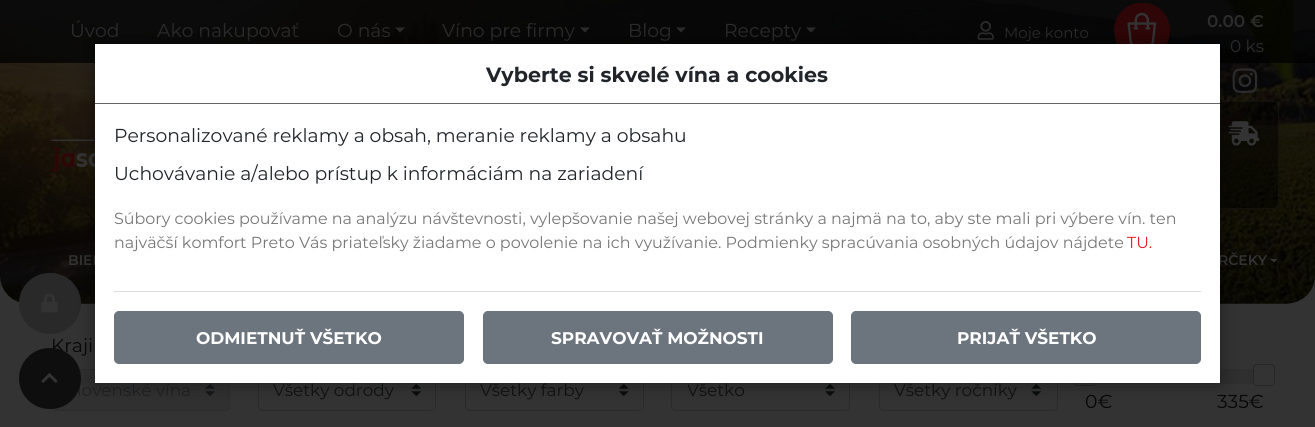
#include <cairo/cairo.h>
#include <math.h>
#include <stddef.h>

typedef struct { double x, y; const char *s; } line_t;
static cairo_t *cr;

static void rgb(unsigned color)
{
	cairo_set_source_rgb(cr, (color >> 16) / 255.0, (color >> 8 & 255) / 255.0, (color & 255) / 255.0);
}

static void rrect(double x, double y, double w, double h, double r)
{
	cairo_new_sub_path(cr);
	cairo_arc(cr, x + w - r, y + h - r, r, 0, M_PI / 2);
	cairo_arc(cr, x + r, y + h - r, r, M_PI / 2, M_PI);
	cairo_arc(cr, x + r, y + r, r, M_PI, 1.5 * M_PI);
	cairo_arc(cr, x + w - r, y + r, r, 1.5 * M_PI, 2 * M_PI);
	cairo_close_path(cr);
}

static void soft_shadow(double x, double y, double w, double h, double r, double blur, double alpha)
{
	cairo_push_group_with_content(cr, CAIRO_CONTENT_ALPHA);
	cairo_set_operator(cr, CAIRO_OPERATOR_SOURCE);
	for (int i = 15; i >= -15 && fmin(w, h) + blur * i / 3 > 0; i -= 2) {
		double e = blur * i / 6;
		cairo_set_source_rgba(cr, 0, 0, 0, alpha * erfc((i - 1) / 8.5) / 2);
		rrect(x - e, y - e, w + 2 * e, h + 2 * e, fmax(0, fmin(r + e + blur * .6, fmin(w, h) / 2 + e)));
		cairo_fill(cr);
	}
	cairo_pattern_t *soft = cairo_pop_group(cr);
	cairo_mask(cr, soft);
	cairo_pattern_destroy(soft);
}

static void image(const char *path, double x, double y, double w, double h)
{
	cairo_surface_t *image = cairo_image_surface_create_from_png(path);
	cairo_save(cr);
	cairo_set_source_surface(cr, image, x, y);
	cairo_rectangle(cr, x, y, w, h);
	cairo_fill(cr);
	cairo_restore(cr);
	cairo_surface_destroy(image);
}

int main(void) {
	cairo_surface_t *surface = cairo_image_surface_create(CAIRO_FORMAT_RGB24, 1315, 427);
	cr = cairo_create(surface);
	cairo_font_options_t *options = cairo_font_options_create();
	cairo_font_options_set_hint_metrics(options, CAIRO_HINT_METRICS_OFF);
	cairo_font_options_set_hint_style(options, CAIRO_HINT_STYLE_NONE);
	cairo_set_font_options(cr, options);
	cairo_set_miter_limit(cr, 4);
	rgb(0x333333);
	cairo_paint(cr);
	image("img/1.png", 0, 0, 1315, 304);
	cairo_set_source_rgba(cr, 0, 0, 0, 0.75);
	cairo_rectangle(cr, 0, 0, 1315, 63);
	cairo_fill(cr);
	rgb(0x2c2c2c);
	cairo_new_path(cr);
	cairo_move_to(cr, 395, 27.5);
	cairo_line_to(cr, 405, 27.5);
	cairo_line_to(cr, 400, 32.5);
	cairo_close_path(cr);
	cairo_fill(cr);
	cairo_new_path(cr);
	cairo_move_to(cr, 580, 27.5);
	cairo_line_to(cr, 590, 27.5);
	cairo_line_to(cr, 585, 32.5);
	cairo_close_path(cr);
	cairo_fill(cr);
	cairo_new_path(cr);
	cairo_move_to(cr, 676, 27.5);
	cairo_line_to(cr, 686, 27.5);
	cairo_line_to(cr, 681, 32.5);
	cairo_close_path(cr);
	cairo_fill(cr);
	cairo_new_path(cr);
	cairo_move_to(cr, 806, 27.5);
	cairo_line_to(cr, 816, 27.5);
	cairo_line_to(cr, 811, 32.5);
	cairo_close_path(cr);
	cairo_fill(cr);
	image("img/2.png", 977, 21, 17, 19);
	image("img/3.png", 1114, 3, 56, 41);
	image("img/4.png", 1232, 68, 26, 25);
	image("img/5.png", 51, 139, 44, 33);
	cairo_set_source_rgba(cr, 0, 0, 0, 0.5);
	rrect(904, 101, 375, 108, 6);
	cairo_fill(cr);
	rrect(904.5, 101.5, 374, 107, 5.5);
	cairo_set_source_rgba(cr, 0.2, 0.2, 0.2, 0.25);
	cairo_set_line_width(cr, 1);
	cairo_stroke(cr);
	image("img/6.png", 1228, 121, 32, 25);
	rgb(0x333333);
	cairo_new_path(cr);
	cairo_move_to(cr, 1270, 259);
	cairo_line_to(cr, 1277.5, 259);
	cairo_line_to(cr, 1274, 262.5);
	cairo_close_path(cr);
	cairo_fill(cr);
	rgb(0x292929);
	rrect(19, 273, 62, 61, 30.5);
	cairo_fill(cr);
	image("img/7.png", 41, 293, 17, 20);
	rgb(0x303031);
	rrect(51, 369, 179, 42, 5);
	cairo_fill(cr);
	image("img/9.png", 205, 384, 10, 12);
	rrect(51.5, 369.5, 178, 41, 4.5);
	rgb(0x2c2d2e);
	cairo_stroke(cr);
	image("img/10.png", 411, 384, 10, 12);
	rrect(258.5, 369.5, 177, 41, 4.5);
	rgb(0x292a2c);
	cairo_stroke(cr);
	image("img/11.png", 619, 384, 10, 12);
	rrect(465.5, 369.5, 178, 41, 4.5);
	cairo_stroke(cr);
	image("img/12.png", 825, 384, 10, 12);
	rrect(671.5, 369.5, 178, 41, 4.5);
	cairo_stroke(cr);
	image("img/10.png", 1031, 384, 10, 12);
	rrect(879.5, 369.5, 178, 41, 4.5);
	cairo_stroke(cr);
	rgb(0x2f2f2f);
	cairo_rectangle(cr, 1095, 369, 159, 15);
	cairo_fill(cr);
	rrect(1074.5, 364.5, 21, 21, 3.5);
	rgb(0x272727);
	cairo_stroke(cr);
	rrect(1253.5, 364.5, 21, 21, 3.5);
	cairo_stroke(cr);
	cairo_select_font_face(cr, "Montserrat", CAIRO_FONT_SLANT_NORMAL, CAIRO_FONT_WEIGHT_NORMAL);
	cairo_set_font_size(cr, 18.75);
	rgb(0x2c2c2c);
	{
		static const line_t items[] = {
			{70, 37, "Úvod"},
			{157, 37, "Ako nakupovať"},
			{337, 37, "O nás"},
			{442, 37, "Víno pre firmy"},
			{628, 37, "Blog"},
			{724, 37, "Recepty"},
		};
		for (size_t i = 0; i < sizeof items / sizeof *items; i++) {
			cairo_move_to(cr, items[i].x, items[i].y);
			cairo_show_text(cr, items[i].s);
		}
	}
	cairo_set_font_size(cr, 15);
	cairo_move_to(cr, 1004, 38);
	cairo_show_text(cr, "Moje konto");
	cairo_select_font_face(cr, "Montserrat SemiBold", CAIRO_FONT_SLANT_NORMAL, CAIRO_FONT_WEIGHT_NORMAL);
	cairo_set_font_size(cr, 16.9);
	cairo_move_to(cr, 1207, 27);
	cairo_show_text(cr, "0.00 €");
	cairo_select_font_face(cr, "Montserrat", CAIRO_FONT_SLANT_NORMAL, CAIRO_FONT_WEIGHT_NORMAL);
	cairo_move_to(cr, 1230, 52);
	cairo_show_text(cr, "0 ks");
	cairo_select_font_face(cr, "Montserrat SemiBold", CAIRO_FONT_SLANT_NORMAL, CAIRO_FONT_WEIGHT_NORMAL);
	cairo_set_font_size(cr, 14);
	rgb(0x333333);
	cairo_move_to(cr, 68, 265);
	cairo_show_text(cr, "BIEL");
	cairo_move_to(cr, 1218, 265);
	cairo_show_text(cr, "RČEKY");
	cairo_select_font_face(cr, "Montserrat", CAIRO_FONT_SLANT_NORMAL, CAIRO_FONT_WEIGHT_NORMAL);
	cairo_set_font_size(cr, 18.75);
	rgb(0x070708);
	cairo_move_to(cr, 51, 352);
	cairo_show_text(cr, "Kraji");
	cairo_set_font_size(cr, 16.9);
	rgb(0x1e2021);
	cairo_move_to(cr, 77, 396);
	cairo_show_text(cr, "lovenské vína");
	rgb(0x0e0e0e);
	rrect(19, 348, 62, 61, 30.5);
	cairo_fill(cr);
	rgb(0x000000);
	soft_shadow(95, 44, 1125, 339, 0, 9.5, 0.4);
	rgb(0xffffff);
	cairo_rectangle(cr, 95, 44, 1125, 339);
	cairo_fill(cr);
	cairo_select_font_face(cr, "Montserrat", CAIRO_FONT_SLANT_NORMAL, CAIRO_FONT_WEIGHT_BOLD);
	cairo_set_font_size(cr, 20.6);
	rgb(0x212529);
	cairo_move_to(cr, 486, 82);
	cairo_show_text(cr, "Vyberte si skvelé vína a cookies");
	rgb(0x666666);
	cairo_rectangle(cr, 95, 103, 1125, 1);
	cairo_fill(cr);
	cairo_select_font_face(cr, "Montserrat", CAIRO_FONT_SLANT_NORMAL, CAIRO_FONT_WEIGHT_NORMAL);
	cairo_set_font_size(cr, 15.95);
	rgb(0xed1c24);
	cairo_move_to(cr, 1127, 248);
	cairo_show_text(cr, "TU.");
	rgb(0x777777);
	cairo_move_to(cr, 114, 248);
	cairo_show_text(cr, "najväčší komfort Preto Vás priateľsky žiadame o povolenie na ich využívanie. Podmienky spracúvania osobných údajov nájdete");
	cairo_move_to(cr, 114, 224);
	cairo_show_text(cr, "Súbory cookies používame na analýzu návštevnosti, vylepšovanie našej webovej stránky a najmä na to, aby ste mali pri výbere vín. ten");
	cairo_set_font_size(cr, 18.75);
	rgb(0x212529);
	cairo_move_to(cr, 114, 180);
	cairo_show_text(cr, "Uchovávanie a/alebo prístup k informáciám na zariadení");
	cairo_move_to(cr, 114, 142);
	cairo_show_text(cr, "Personalizované reklamy a obsah, meranie reklamy a obsahu");
	rgb(0x6c757d);
	rrect(851.5, 311.5, 349, 52, 4.5);
	cairo_fill_preserve(cr);
	cairo_stroke(cr);
	cairo_select_font_face(cr, "Montserrat", CAIRO_FONT_SLANT_NORMAL, CAIRO_FONT_WEIGHT_BOLD);
	cairo_set_font_size(cr, 16.9);
	rgb(0xffffff);
	cairo_move_to(cr, 957, 344);
	cairo_show_text(cr, "PRIJAŤ VŠETKO");
	rgb(0x6c757d);
	rrect(483.5, 311.5, 349, 52, 4.5);
	cairo_fill_preserve(cr);
	cairo_stroke(cr);
	rgb(0xffffff);
	cairo_move_to(cr, 551, 344);
	cairo_show_text(cr, "SPRAVOVAŤ MOŽNOSTI");
	rgb(0x6c757d);
	rrect(114.5, 311.5, 349, 52, 4.5);
	cairo_fill_preserve(cr);
	cairo_stroke(cr);
	rgb(0xffffff);
	cairo_move_to(cr, 196, 344);
	cairo_show_text(cr, "ODMIETNUŤ VŠETKO");
	rgb(0xdddddd);
	cairo_rectangle(cr, 114, 291, 1087, 1);
	cairo_fill(cr);
	image("img/8.png", 41, 373, 17, 10);
	cairo_select_font_face(cr, "Montserrat", CAIRO_FONT_SLANT_NORMAL, CAIRO_FONT_WEIGHT_NORMAL);
	rgb(0x0f1011);
	cairo_move_to(cr, 273, 396);
	cairo_show_text(cr, "Všetky odrody");
	cairo_move_to(cr, 480, 396);
	cairo_show_text(cr, "Všetky farby");
	cairo_save(cr);
	cairo_rectangle(cr, 688, 378, 128, 25);
	cairo_clip(cr);
	cairo_move_to(cr, 687, 396);
	cairo_show_text(cr, "Všetko");
	cairo_restore(cr);
	cairo_move_to(cr, 894, 396);
	cairo_show_text(cr, "Všetky ročníky");
	cairo_set_font_size(cr, 18.75);
	rgb(0x070708);
	cairo_move_to(cr, 1085, 408);
	cairo_show_text(cr, "0€");
	cairo_move_to(cr, 1217, 408);
	cairo_show_text(cr, "335€");
	cairo_surface_write_to_png(surface, "page.png");
	cairo_font_options_destroy(options);
	cairo_destroy(cr);
	cairo_surface_destroy(surface);
	return 0;
}
